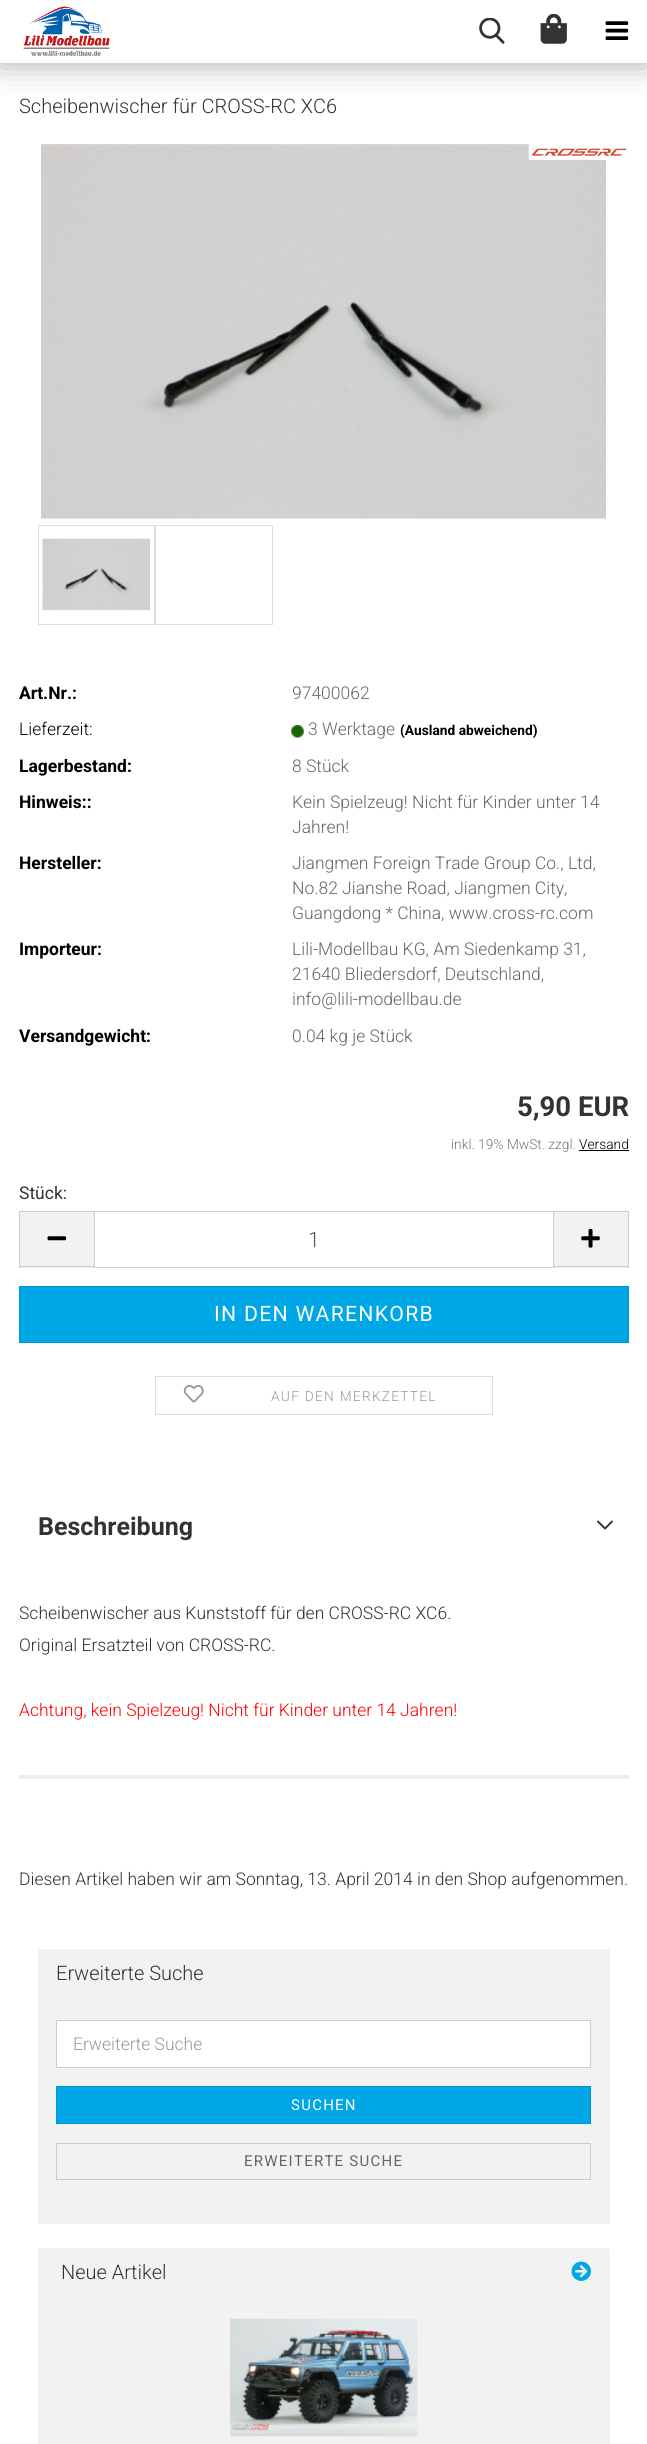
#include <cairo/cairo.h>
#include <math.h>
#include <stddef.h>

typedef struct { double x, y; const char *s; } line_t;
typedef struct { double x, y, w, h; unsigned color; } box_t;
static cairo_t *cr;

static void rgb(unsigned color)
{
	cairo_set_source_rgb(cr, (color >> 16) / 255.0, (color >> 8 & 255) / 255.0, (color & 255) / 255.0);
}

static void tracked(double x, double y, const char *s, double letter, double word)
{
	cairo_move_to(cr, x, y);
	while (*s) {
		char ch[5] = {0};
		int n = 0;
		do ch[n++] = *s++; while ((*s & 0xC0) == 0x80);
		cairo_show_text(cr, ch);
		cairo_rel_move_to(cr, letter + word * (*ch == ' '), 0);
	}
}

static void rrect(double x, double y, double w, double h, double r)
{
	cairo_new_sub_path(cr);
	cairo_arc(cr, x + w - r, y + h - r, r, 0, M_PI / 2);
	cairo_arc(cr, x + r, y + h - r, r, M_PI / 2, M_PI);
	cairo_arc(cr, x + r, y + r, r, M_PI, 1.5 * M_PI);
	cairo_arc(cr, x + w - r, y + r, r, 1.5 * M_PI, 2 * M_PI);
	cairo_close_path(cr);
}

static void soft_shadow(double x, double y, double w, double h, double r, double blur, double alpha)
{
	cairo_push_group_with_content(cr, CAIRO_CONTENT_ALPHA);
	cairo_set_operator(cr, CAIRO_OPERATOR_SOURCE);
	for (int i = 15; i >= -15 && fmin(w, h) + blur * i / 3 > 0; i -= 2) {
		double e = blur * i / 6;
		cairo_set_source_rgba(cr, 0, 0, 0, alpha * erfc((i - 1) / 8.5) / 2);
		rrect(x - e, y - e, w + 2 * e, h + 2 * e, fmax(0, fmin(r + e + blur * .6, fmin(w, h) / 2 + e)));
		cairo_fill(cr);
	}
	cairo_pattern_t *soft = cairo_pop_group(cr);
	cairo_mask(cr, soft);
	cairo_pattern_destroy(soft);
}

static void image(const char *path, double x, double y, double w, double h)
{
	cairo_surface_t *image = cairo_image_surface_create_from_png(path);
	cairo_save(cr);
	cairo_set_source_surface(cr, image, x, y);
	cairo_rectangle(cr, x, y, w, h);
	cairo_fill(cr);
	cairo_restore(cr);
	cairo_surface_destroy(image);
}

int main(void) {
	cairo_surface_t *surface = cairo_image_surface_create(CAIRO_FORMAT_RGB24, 647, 2444);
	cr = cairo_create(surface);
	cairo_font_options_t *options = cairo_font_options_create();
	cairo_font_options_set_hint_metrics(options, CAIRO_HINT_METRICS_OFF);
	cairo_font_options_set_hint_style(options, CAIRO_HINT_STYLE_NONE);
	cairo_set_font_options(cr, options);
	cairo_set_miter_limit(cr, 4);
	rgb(0xffffff);
	cairo_paint(cr);
	rgb(0x000000);
	soft_shadow(0, 0, 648, 63, 0, 15.5, 0.35);
	rgb(0xffffff);
	cairo_rectangle(cr, 0, 0, 647, 63);
	cairo_fill(cr);
	image("img/1.png", 23, 6, 87, 50);
	image("img/2.png", 479, 18, 26, 26);
	image("img/3.png", 540, 14, 27, 30);
	image("img/4.png", 605, 21, 24, 19);
	image("img/5.png", 41, 144, 565, 375);
	cairo_rectangle(cr, 38.5, 525.5, 116, 99);
	rgb(0xdddddd);
	cairo_set_line_width(cr, 1);
	cairo_stroke(cr);
	image("img/6.png", 42, 538, 108, 73);
	cairo_rectangle(cr, 155.5, 525.5, 117, 99);
	cairo_stroke(cr);
	image("img/7.png", 528, 144, 99, 16);
	image("img/8.png", 291, 725, 13, 13);
	{
		static const box_t items[] = {
			{579, 1150, 50, 1, 0x000000},
			{20, 1212, 74, 56, 0xf2f2f2},
			{19, 1211, 75, 1, 0xcccccc},
			{19, 1266, 75, 1, 0xcccccc},
			{19, 1211, 1, 57, 0xcccccc},
		};
		for (size_t i = 0; i < sizeof items / sizeof *items; i++) {
			rgb(items[i].color);
			cairo_rectangle(cr, items[i].x, items[i].y, items[i].w, items[i].h);
			cairo_fill(cr);
		}
	}
	image("img/9.png", 47, 1236, 20, 5);
	cairo_rectangle(cr, 94.5, 1211.5, 459, 56);
	cairo_stroke(cr);
	{
		static const box_t items[] = {
			{554, 1212, 74, 56, 0xf2f2f2},
			{554, 1211, 75, 1, 0xcccccc},
			{628, 1211, 1, 57, 0xcccccc},
			{554, 1266, 75, 1, 0xcccccc},
		};
		for (size_t i = 0; i < sizeof items / sizeof *items; i++) {
			rgb(items[i].color);
			cairo_rectangle(cr, items[i].x, items[i].y, items[i].w, items[i].h);
			cairo_fill(cr);
		}
	}
	image("img/10.png", 581, 1229, 19, 19);
	rgb(0x00a7e7);
	cairo_rectangle(cr, 19.5, 1286.5, 609, 56);
	cairo_fill_preserve(cr);
	rgb(0x0095ce);
	cairo_stroke(cr);
	cairo_rectangle(cr, 155.5, 1376.5, 337, 38);
	rgb(0xdddddd);
	cairo_stroke(cr);
	image("img/11.png", 183, 1385, 21, 18);
	image("img/12.png", 597, 1520, 16, 10);
	rgb(0xeeeeee);
	cairo_rectangle(cr, 19, 1775, 610, 4);
	cairo_fill(cr);
	rgb(0xf2f2f2);
	cairo_new_path(cr);
	cairo_move_to(cr, 39, 1948);
	cairo_line_to(cr, 609, 1948);
	cairo_curve_to(cr, 609.5, 1948, 610, 1948.5, 610, 1949);
	cairo_line_to(cr, 610, 2001);
	cairo_line_to(cr, 38, 2001);
	cairo_line_to(cr, 38, 1949);
	cairo_curve_to(cr, 38, 1948.5, 38.5, 1948, 39, 1948);
	cairo_close_path(cr);
	cairo_fill(cr);
	rgb(0xffffff);
	cairo_new_path(cr);
	cairo_move_to(cr, 39, 1949);
	cairo_line_to(cr, 609, 1949);
	cairo_line_to(cr, 610, 1950);
	cairo_curve_to(cr, 610, 1949, 610, 1948, 609, 1948);
	cairo_line_to(cr, 38, 1948);
	cairo_line_to(cr, 38, 1950);
	cairo_curve_to(cr, 38, 1949, 38, 1949, 39, 1949);
	cairo_close_path(cr);
	cairo_fill(cr);
	rgb(0xf2f2f2);
	cairo_rectangle(cr, 38, 2001, 572, 223);
	cairo_fill(cr);
	rgb(0xffffff);
	cairo_rectangle(cr, 56.5, 2020.5, 534, 47);
	cairo_fill_preserve(cr);
	rgb(0xcccccc);
	cairo_stroke(cr);
	rgb(0x00a7e7);
	cairo_rectangle(cr, 56.5, 2086.5, 534, 37);
	cairo_fill_preserve(cr);
	rgb(0x0095ce);
	cairo_stroke(cr);
	cairo_rectangle(cr, 56.5, 2143.5, 534, 36);
	rgb(0xcccccc);
	cairo_stroke(cr);
	rgb(0xf2f2f2);
	cairo_new_path(cr);
	cairo_move_to(cr, 39, 2246);
	cairo_line_to(cr, 609, 2246);
	cairo_curve_to(cr, 609.5, 2246, 610, 2246.5, 610, 2247);
	cairo_line_to(cr, 610, 2300);
	cairo_line_to(cr, 38, 2300);
	cairo_line_to(cr, 38, 2247);
	cairo_curve_to(cr, 38, 2246.5, 38.5, 2246, 39, 2246);
	cairo_close_path(cr);
	cairo_fill(cr);
	rgb(0xffffff);
	cairo_new_path(cr);
	cairo_move_to(cr, 39, 2248);
	cairo_line_to(cr, 609, 2248);
	cairo_line_to(cr, 610, 2249);
	cairo_line_to(cr, 610, 2247);
	cairo_curve_to(cr, 610, 2246, 610, 2246, 609, 2246);
	cairo_line_to(cr, 39, 2246);
	cairo_curve_to(cr, 38, 2246, 38, 2246, 38, 2247);
	cairo_line_to(cr, 38, 2249);
	cairo_curve_to(cr, 38, 2248, 38, 2248, 39, 2248);
	cairo_close_path(cr);
	cairo_fill(cr);
	image("img/13.png", 571, 2261, 20, 20);
	rgb(0xf2f2f2);
	cairo_rectangle(cr, 38, 2300, 572, 144);
	cairo_fill(cr);
	image("img/14.png", 230, 2318, 188, 119);
	cairo_select_font_face(cr, "Roboto Light", CAIRO_FONT_SLANT_NORMAL, CAIRO_FONT_WEIGHT_NORMAL);
	cairo_set_font_size(cr, 20);
	rgb(0x333333);
	cairo_move_to(cr, 19, 113);
	cairo_show_text(cr, "Scheibenwischer für CROSS-RC XC6");
	cairo_select_font_face(cr, "Roboto", CAIRO_FONT_SLANT_NORMAL, CAIRO_FONT_WEIGHT_BOLD);
	cairo_set_font_size(cr, 17.5);
	rgb(0x000000);
	cairo_move_to(cr, 19, 699);
	cairo_show_text(cr, "Art.Nr.:");
	cairo_select_font_face(cr, "Roboto Light", CAIRO_FONT_SLANT_NORMAL, CAIRO_FONT_WEIGHT_NORMAL);
	rgb(0x666666);
	cairo_move_to(cr, 292, 699);
	cairo_show_text(cr, "97400062");
	rgb(0x000000);
	cairo_move_to(cr, 19, 735);
	cairo_show_text(cr, "Lieferzeit:");
	rgb(0x666666);
	cairo_move_to(cr, 308, 735);
	cairo_show_text(cr, "3 Werktage");
	cairo_select_font_face(cr, "Roboto", CAIRO_FONT_SLANT_NORMAL, CAIRO_FONT_WEIGHT_BOLD);
	cairo_set_font_size(cr, 13.75);
	rgb(0x000000);
	cairo_move_to(cr, 400, 735);
	cairo_show_text(cr, "(Ausland abweichend)");
	cairo_set_font_size(cr, 17.5);
	cairo_move_to(cr, 19, 772);
	cairo_show_text(cr, "Lagerbestand:");
	cairo_select_font_face(cr, "Roboto Light", CAIRO_FONT_SLANT_NORMAL, CAIRO_FONT_WEIGHT_NORMAL);
	rgb(0x666666);
	cairo_move_to(cr, 292, 772);
	cairo_show_text(cr, "8 Stück");
	cairo_select_font_face(cr, "Roboto", CAIRO_FONT_SLANT_NORMAL, CAIRO_FONT_WEIGHT_BOLD);
	rgb(0x000000);
	cairo_move_to(cr, 19, 808);
	cairo_show_text(cr, "Hinweis::");
	cairo_select_font_face(cr, "Roboto Light", CAIRO_FONT_SLANT_NORMAL, CAIRO_FONT_WEIGHT_NORMAL);
	rgb(0x666666);
	cairo_move_to(cr, 292, 808);
	cairo_show_text(cr, "Kein Spielzeug! Nicht für Kinder unter 14");
	cairo_move_to(cr, 292, 833);
	cairo_show_text(cr, "Jahren!");
	cairo_select_font_face(cr, "Roboto", CAIRO_FONT_SLANT_NORMAL, CAIRO_FONT_WEIGHT_BOLD);
	rgb(0x000000);
	cairo_move_to(cr, 19, 869);
	cairo_show_text(cr, "Hersteller:");
	cairo_select_font_face(cr, "Roboto Light", CAIRO_FONT_SLANT_NORMAL, CAIRO_FONT_WEIGHT_NORMAL);
	rgb(0x666666);
	{
		static const line_t items[] = {
			{292, 869, "Jiangmen Foreign Trade Group Co., Ltd,"},
			{292, 894, "No.82 Jianshe Road, Jiangmen City,"},
			{292, 919, "Guangdong * China, www.cross-rc.com"},
		};
		for (size_t i = 0; i < sizeof items / sizeof *items; i++) {
			cairo_move_to(cr, items[i].x, items[i].y);
			cairo_show_text(cr, items[i].s);
		}
	}
	cairo_select_font_face(cr, "Roboto", CAIRO_FONT_SLANT_NORMAL, CAIRO_FONT_WEIGHT_BOLD);
	rgb(0x000000);
	cairo_move_to(cr, 19, 955);
	cairo_show_text(cr, "Importeur:");
	cairo_select_font_face(cr, "Roboto Light", CAIRO_FONT_SLANT_NORMAL, CAIRO_FONT_WEIGHT_NORMAL);
	rgb(0x666666);
	{
		static const line_t items[] = {
			{292, 955, "Lili-Modellbau KG, Am Siedenkamp 31,"},
			{292, 980, "21640 Bliedersdorf, Deutschland,"},
			{292, 1005, "info@lili-modellbau.de"},
		};
		for (size_t i = 0; i < sizeof items / sizeof *items; i++) {
			cairo_move_to(cr, items[i].x, items[i].y);
			cairo_show_text(cr, items[i].s);
		}
	}
	cairo_select_font_face(cr, "Roboto", CAIRO_FONT_SLANT_NORMAL, CAIRO_FONT_WEIGHT_BOLD);
	rgb(0x000000);
	cairo_move_to(cr, 19, 1042);
	cairo_show_text(cr, "Versandgewicht:");
	cairo_select_font_face(cr, "Roboto Light", CAIRO_FONT_SLANT_NORMAL, CAIRO_FONT_WEIGHT_NORMAL);
	rgb(0x666666);
	cairo_move_to(cr, 292, 1042);
	cairo_show_text(cr, "0.04 kg je Stück");
	cairo_select_font_face(cr, "Roboto", CAIRO_FONT_SLANT_NORMAL, CAIRO_FONT_WEIGHT_BOLD);
	cairo_set_font_size(cr, 27.5);
	rgb(0x333333);
	cairo_move_to(cr, 517, 1116);
	cairo_show_text(cr, "5,90 EUR");
	cairo_select_font_face(cr, "Roboto Light", CAIRO_FONT_SLANT_NORMAL, CAIRO_FONT_WEIGHT_NORMAL);
	cairo_set_font_size(cr, 13.75);
	rgb(0x777777);
	cairo_move_to(cr, 451, 1149);
	cairo_show_text(cr, "inkl. 19% MwSt. zzgl.");
	rgb(0x000000);
	cairo_move_to(cr, 579, 1149);
	cairo_show_text(cr, "Versand");
	cairo_select_font_face(cr, "Roboto", CAIRO_FONT_SLANT_NORMAL, CAIRO_FONT_WEIGHT_NORMAL);
	cairo_set_font_size(cr, 17.5);
	rgb(0x333333);
	cairo_move_to(cr, 19, 1199);
	cairo_show_text(cr, "Stück:");
	cairo_select_font_face(cr, "Roboto Light", CAIRO_FONT_SLANT_NORMAL, CAIRO_FONT_WEIGHT_NORMAL);
	cairo_set_font_size(cr, 21.25);
	rgb(0x555555);
	cairo_move_to(cr, 308, 1247);
	cairo_show_text(cr, "1");
	cairo_select_font_face(cr, "Roboto", CAIRO_FONT_SLANT_NORMAL, CAIRO_FONT_WEIGHT_NORMAL);
	rgb(0xffffff);
	tracked(214, 1321, "IN DEN WARENKORB", 1.25, 0);
	cairo_select_font_face(cr, "Roboto Light", CAIRO_FONT_SLANT_NORMAL, CAIRO_FONT_WEIGHT_NORMAL);
	cairo_set_font_size(cr, 13.75);
	rgb(0x999999);
	tracked(271, 1401, "AUF DEN MERKZETTEL", 1.25, 0);
	cairo_select_font_face(cr, "Roboto", CAIRO_FONT_SLANT_NORMAL, CAIRO_FONT_WEIGHT_BOLD);
	cairo_set_font_size(cr, 25);
	rgb(0x333333);
	cairo_move_to(cr, 38, 1535);
	cairo_show_text(cr, "Beschreibung");
	cairo_select_font_face(cr, "Roboto Light", CAIRO_FONT_SLANT_NORMAL, CAIRO_FONT_WEIGHT_NORMAL);
	cairo_set_font_size(cr, 17.5);
	cairo_move_to(cr, 19, 1619);
	cairo_show_text(cr, "Scheibenwischer aus Kunststoff für den CROSS-RC XC6.");
	cairo_move_to(cr, 19, 1651);
	cairo_show_text(cr, "Original Ersatzteil von CROSS-RC.");
	rgb(0xff0000);
	cairo_move_to(cr, 19, 1716);
	cairo_show_text(cr, "Achtung, kein Spielzeug! Nicht für Kinder unter 14 Jahren!");
	rgb(0x333333);
	cairo_move_to(cr, 19, 1885);
	cairo_show_text(cr, "Diesen Artikel haben wir am Sonntag, 13. April 2014 in den Shop aufgenommen.");
	cairo_set_font_size(cr, 20);
	cairo_move_to(cr, 56, 1980);
	cairo_show_text(cr, "Erweiterte Suche");
	cairo_set_font_size(cr, 17.5);
	rgb(0x999999);
	cairo_move_to(cr, 73, 2050);
	cairo_show_text(cr, "Erweiterte Suche");
	cairo_select_font_face(cr, "Roboto", CAIRO_FONT_SLANT_NORMAL, CAIRO_FONT_WEIGHT_NORMAL);
	cairo_set_font_size(cr, 15);
	rgb(0xffffff);
	tracked(291, 2110, "SUCHEN", 1.25, 0);
	rgb(0x666666);
	tracked(244, 2166, "ERWEITERTE SUCHE", 1.25, 0);
	cairo_select_font_face(cr, "Roboto Light", CAIRO_FONT_SLANT_NORMAL, CAIRO_FONT_WEIGHT_NORMAL);
	cairo_set_font_size(cr, 20);
	rgb(0x333333);
	cairo_move_to(cr, 61, 2279);
	cairo_show_text(cr, "Neue Artikel");
	cairo_surface_write_to_png(surface, "page.png");
	cairo_font_options_destroy(options);
	cairo_destroy(cr);
	cairo_surface_destroy(surface);
	return 0;
}
